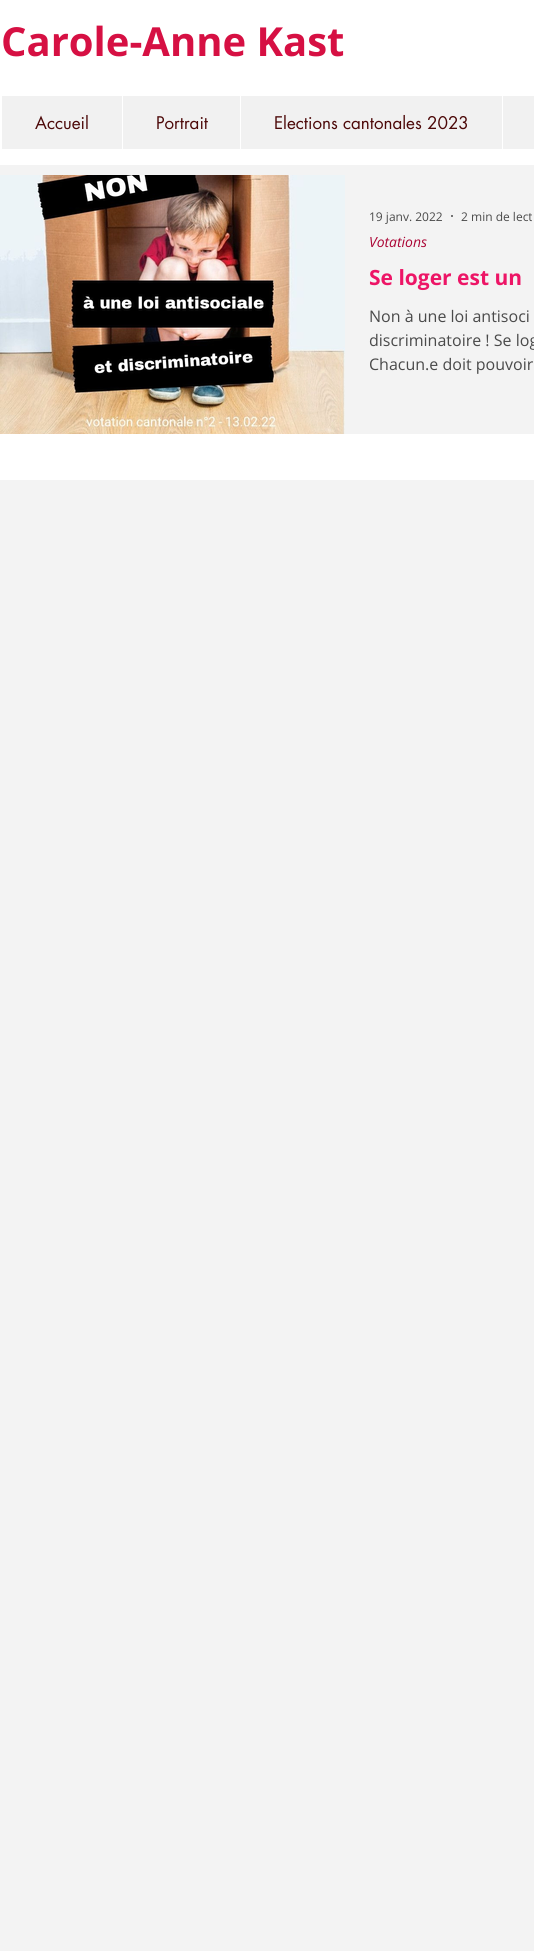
#include <cairo/cairo.h>
#include <math.h>
#include <stddef.h>

typedef struct { double x, y; const char *s; } line_t;
typedef struct { double x, y, w, h; unsigned color; } box_t;
static cairo_t *cr;

static void rgb(unsigned color)
{
	cairo_set_source_rgb(cr, (color >> 16) / 255.0, (color >> 8 & 255) / 255.0, (color & 255) / 255.0);
}

static void image(const char *path, double x, double y, double w, double h)
{
	cairo_surface_t *image = cairo_image_surface_create_from_png(path);
	cairo_save(cr);
	cairo_set_source_surface(cr, image, x, y);
	cairo_rectangle(cr, x, y, w, h);
	cairo_fill(cr);
	cairo_restore(cr);
	cairo_surface_destroy(image);
}

int main(void) {
	cairo_surface_t *surface = cairo_image_surface_create(CAIRO_FORMAT_RGB24, 534, 1951);
	cr = cairo_create(surface);
	cairo_font_options_t *options = cairo_font_options_create();
	cairo_font_options_set_hint_metrics(options, CAIRO_HINT_METRICS_OFF);
	cairo_font_options_set_hint_style(options, CAIRO_HINT_STYLE_NONE);
	cairo_set_font_options(cr, options);
	cairo_set_miter_limit(cr, 4);
	rgb(0xffffff);
	cairo_paint(cr);
	{
		static const box_t items[] = {
			{2, 96, 532, 53, 0xf1f1f1},
			{122, 96, 1, 53, 0xffffff},
			{240, 96, 1, 53, 0xffffff},
			{502, 96, 1, 53, 0xffffff},
			{0, 165, 534, 1786, 0xf3f3f3},
			{0, 434, 534, 46, 0xffffff},
		};
		for (size_t i = 0; i < sizeof items / sizeof *items; i++) {
			rgb(items[i].color);
			cairo_rectangle(cr, items[i].x, items[i].y, items[i].w, items[i].h);
			cairo_fill(cr);
		}
	}
	image("img/1.png", 0, 175, 345, 259);
	rgb(0x4a4a4a);
	cairo_arc(cr, 452, 216, 1, 0, 2 * M_PI);
	cairo_fill(cr);
	cairo_select_font_face(cr, "Open Sans", CAIRO_FONT_SLANT_NORMAL, CAIRO_FONT_WEIGHT_BOLD);
	cairo_set_font_size(cr, 40);
	rgb(0xd61043);
	cairo_move_to(cr, 1, 56);
	cairo_show_text(cr, "Carole-Anne Kast");
	cairo_select_font_face(cr, "futura", CAIRO_FONT_SLANT_NORMAL, CAIRO_FONT_WEIGHT_NORMAL);
	cairo_set_font_size(cr, 17);
	rgb(0x4c0808);
	{
		static const line_t items[] = {
			{35, 129, "Accueil"},
			{156, 129, "Portrait"},
			{274, 129, "Elections cantonales 2023"},
		};
		for (size_t i = 0; i < sizeof items / sizeof *items; i++) {
			cairo_move_to(cr, items[i].x, items[i].y);
			cairo_show_text(cr, items[i].s);
		}
	}
	cairo_select_font_face(cr, "Open Sans", CAIRO_FONT_SLANT_NORMAL, CAIRO_FONT_WEIGHT_NORMAL);
	cairo_set_font_size(cr, 12);
	rgb(0x4a4a4a);
	cairo_move_to(cr, 369, 221);
	cairo_show_text(cr, "19 janv. 2022");
	cairo_move_to(cr, 461, 221);
	cairo_show_text(cr, "2 min de lect");
	cairo_select_font_face(cr, "Open Sans", CAIRO_FONT_SLANT_ITALIC, CAIRO_FONT_WEIGHT_NORMAL);
	cairo_set_font_size(cr, 14);
	rgb(0xab0535);
	cairo_move_to(cr, 369, 247);
	cairo_show_text(cr, "Votations");
	cairo_select_font_face(cr, "Open Sans", CAIRO_FONT_SLANT_NORMAL, CAIRO_FONT_WEIGHT_BOLD);
	cairo_set_font_size(cr, 21);
	rgb(0xed1566);
	cairo_move_to(cr, 369, 285);
	cairo_show_text(cr, "Se loger est un");
	cairo_select_font_face(cr, "Open Sans", CAIRO_FONT_SLANT_NORMAL, CAIRO_FONT_WEIGHT_NORMAL);
	cairo_set_font_size(cr, 16);
	rgb(0x4a4a4a);
	{
		static const line_t items[] = {
			{369, 322, "Non à une loi antisoci"},
			{369, 346, "discriminatoire ! Se log"},
			{369, 370, "Chacun.e doit pouvoir"},
		};
		for (size_t i = 0; i < sizeof items / sizeof *items; i++) {
			cairo_move_to(cr, items[i].x, items[i].y);
			cairo_show_text(cr, items[i].s);
		}
	}
	cairo_surface_write_to_png(surface, "page.png");
	cairo_font_options_destroy(options);
	cairo_destroy(cr);
	cairo_surface_destroy(surface);
	return 0;
}
